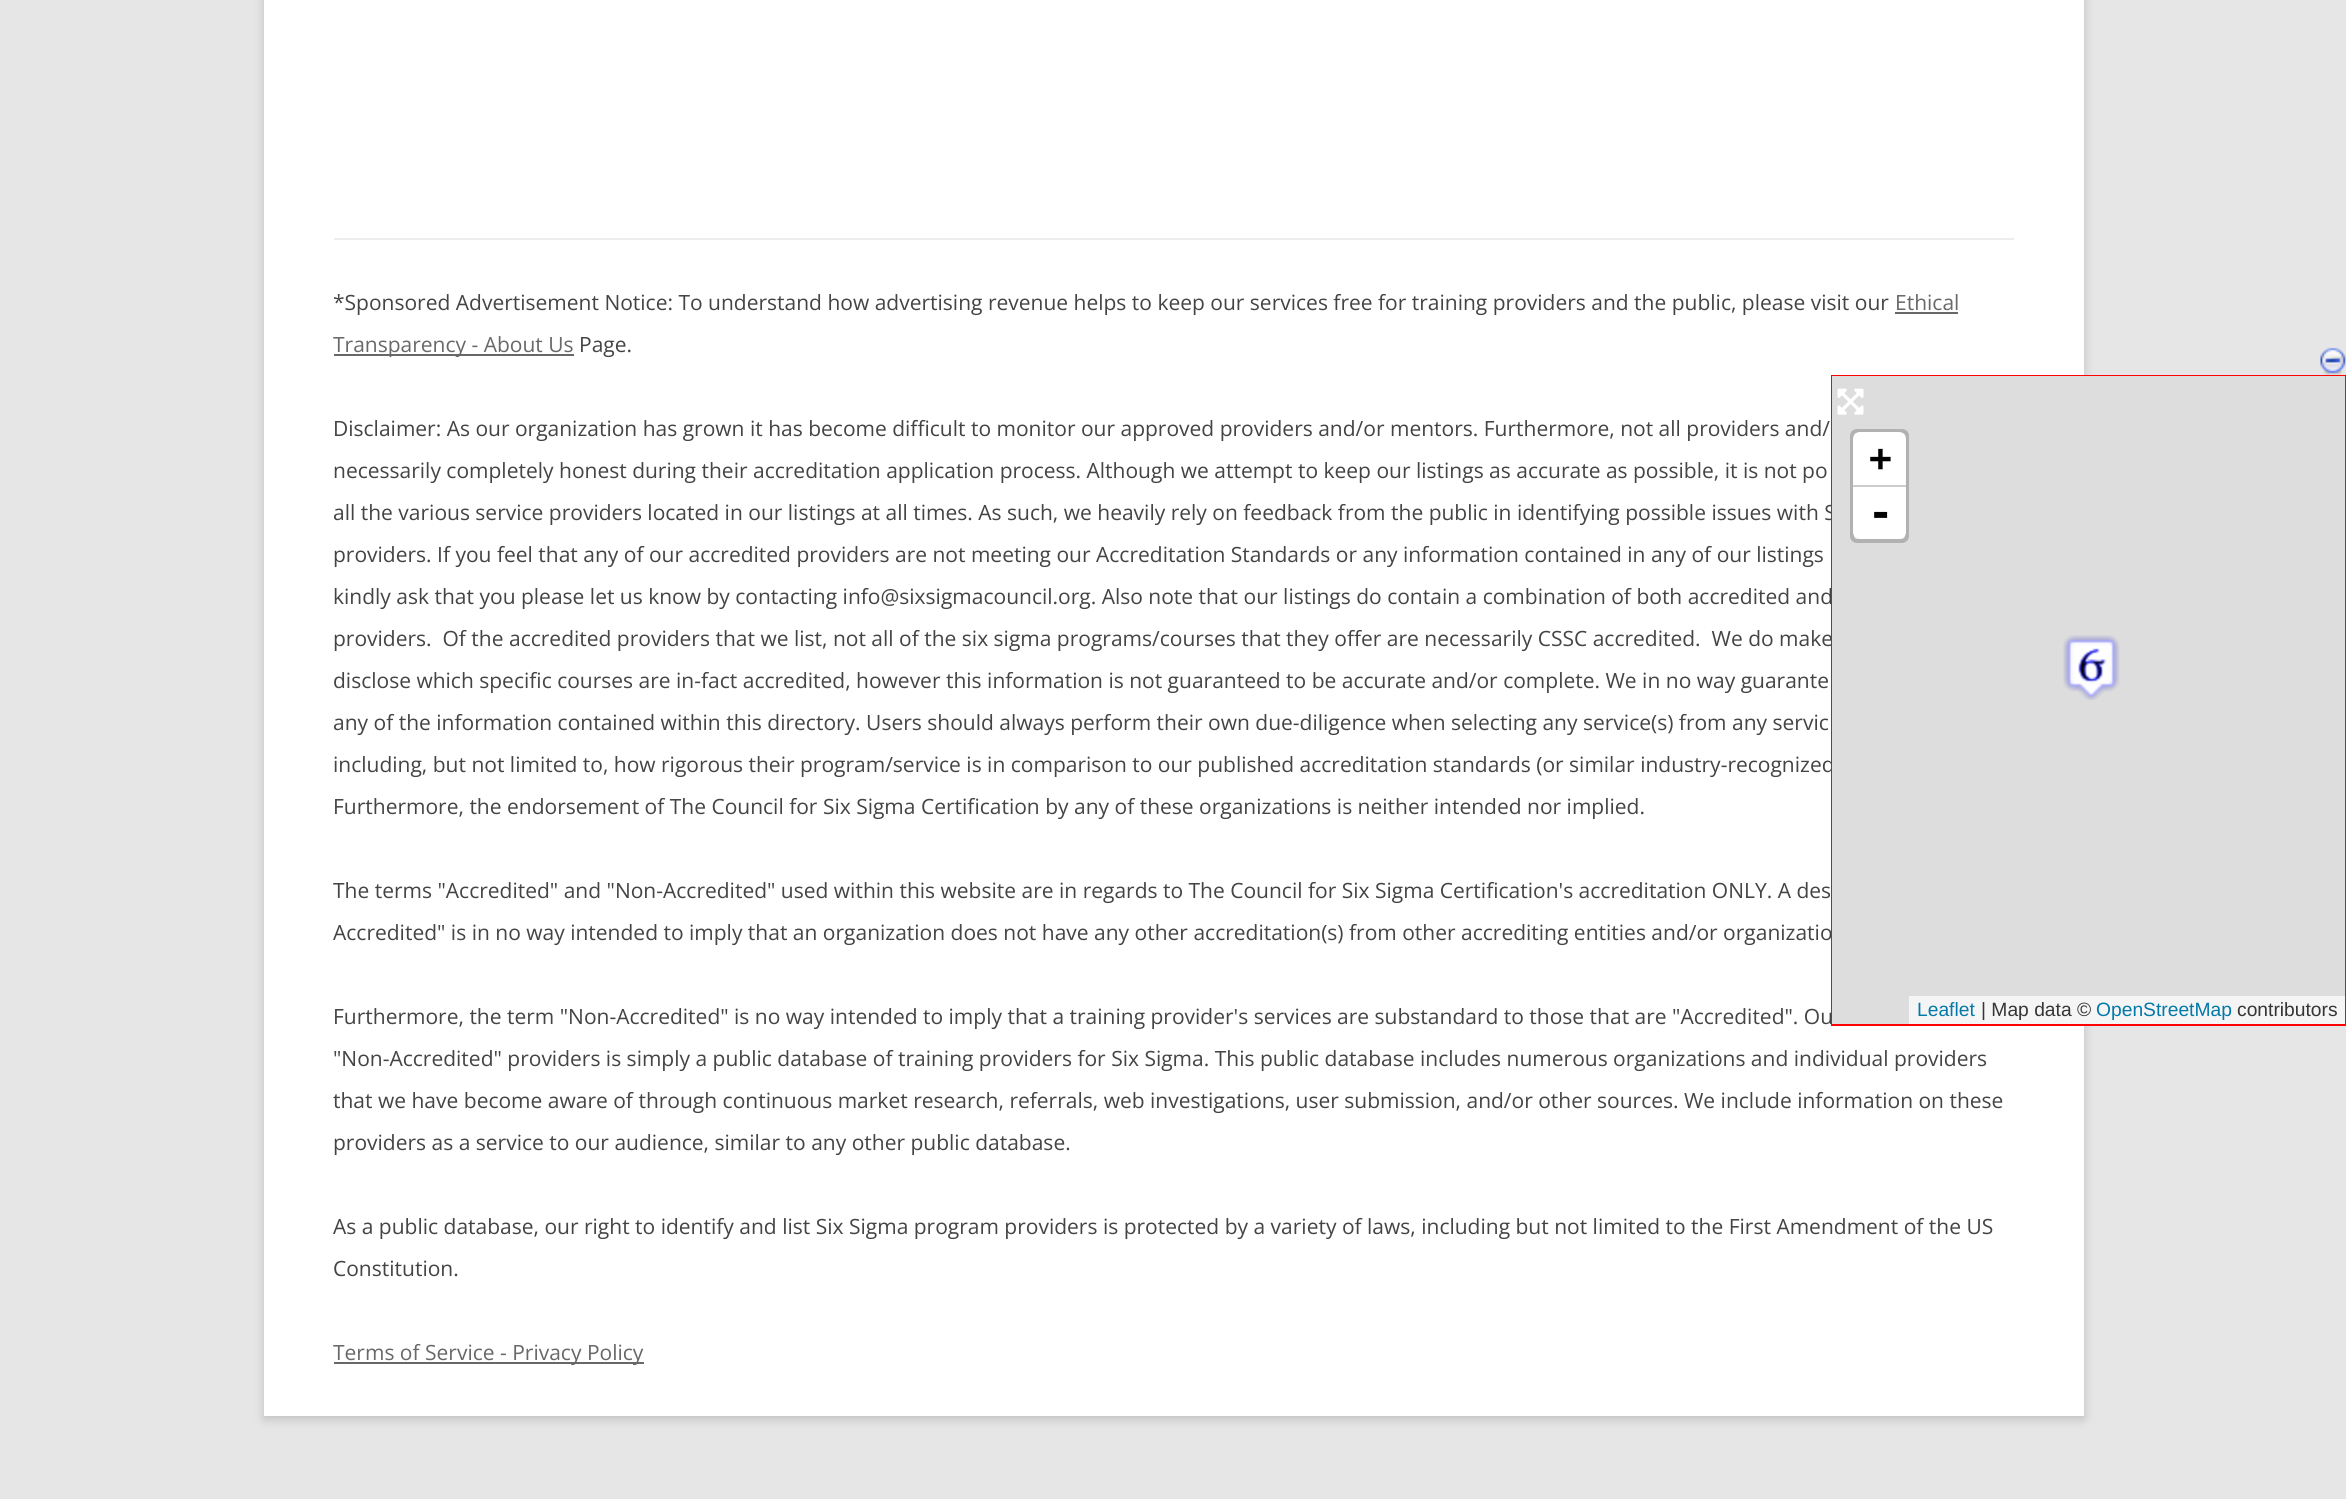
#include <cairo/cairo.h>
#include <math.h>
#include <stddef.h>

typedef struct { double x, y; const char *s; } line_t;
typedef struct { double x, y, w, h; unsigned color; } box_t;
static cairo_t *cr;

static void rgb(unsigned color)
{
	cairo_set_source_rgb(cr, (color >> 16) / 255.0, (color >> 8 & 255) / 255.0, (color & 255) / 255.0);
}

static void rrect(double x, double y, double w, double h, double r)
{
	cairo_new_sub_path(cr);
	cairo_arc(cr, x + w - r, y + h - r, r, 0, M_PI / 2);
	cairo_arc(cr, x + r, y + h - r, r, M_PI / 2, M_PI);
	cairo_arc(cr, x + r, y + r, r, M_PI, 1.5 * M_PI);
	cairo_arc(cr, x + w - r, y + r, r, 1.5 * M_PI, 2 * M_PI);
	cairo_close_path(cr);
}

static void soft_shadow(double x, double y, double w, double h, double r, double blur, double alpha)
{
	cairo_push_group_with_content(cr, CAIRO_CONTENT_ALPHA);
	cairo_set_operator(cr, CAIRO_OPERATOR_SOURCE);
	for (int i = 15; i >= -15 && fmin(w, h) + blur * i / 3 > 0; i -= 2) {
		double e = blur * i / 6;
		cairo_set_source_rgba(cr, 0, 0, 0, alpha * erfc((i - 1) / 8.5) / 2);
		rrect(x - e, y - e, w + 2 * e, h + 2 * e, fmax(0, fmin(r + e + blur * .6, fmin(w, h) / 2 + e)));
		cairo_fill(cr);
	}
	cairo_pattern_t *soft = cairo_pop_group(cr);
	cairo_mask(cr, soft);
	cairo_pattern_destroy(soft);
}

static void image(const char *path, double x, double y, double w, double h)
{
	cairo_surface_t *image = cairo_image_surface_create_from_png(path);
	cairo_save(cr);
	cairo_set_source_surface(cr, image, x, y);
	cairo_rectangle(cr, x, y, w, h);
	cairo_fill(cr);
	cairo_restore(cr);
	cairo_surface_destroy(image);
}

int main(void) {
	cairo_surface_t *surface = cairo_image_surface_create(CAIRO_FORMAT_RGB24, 2346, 1499);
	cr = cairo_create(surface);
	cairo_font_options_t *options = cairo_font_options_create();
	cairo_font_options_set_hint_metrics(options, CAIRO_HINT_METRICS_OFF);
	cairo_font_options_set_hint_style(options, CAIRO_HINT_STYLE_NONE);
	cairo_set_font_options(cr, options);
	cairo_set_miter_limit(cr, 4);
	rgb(0xe6e6e6);
	cairo_paint(cr);
	rgb(0x646464);
	soft_shadow(264, -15, 1820, 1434, 0, 5, 0.3);
	{
		static const box_t items[] = {
			{264, 0, 1820, 1416, 0xffffff},
			{334, 238, 1680, 2, 0xededed},
			{1895, 312, 63, 2, 0x686868},
			{334, 354, 240, 2, 0x686868},
			{334, 1362, 310, 2, 0x686868},
		};
		for (size_t i = 0; i < sizeof items / sizeof *items; i++) {
			rgb(items[i].color);
			cairo_rectangle(cr, items[i].x, items[i].y, items[i].w, items[i].h);
			cairo_fill(cr);
		}
	}
	image("img/1.png", 2320, 347, 26, 28);
	cairo_select_font_face(cr, "Open Sans", CAIRO_FONT_SLANT_NORMAL, CAIRO_FONT_WEIGHT_NORMAL);
	cairo_set_font_size(cr, 21);
	rgb(0x444444);
	cairo_move_to(cr, 333, 310);
	cairo_show_text(cr, "*Sponsored Advertisement Notice: To understand how advertising revenue helps to keep our services free for training providers and the public, please visit our");
	rgb(0x686868);
	cairo_move_to(cr, 1895, 310);
	cairo_show_text(cr, "Ethical");
	cairo_move_to(cr, 333, 352);
	cairo_show_text(cr, "Transparency - About Us");
	rgb(0x444444);
	{
		static const line_t items[] = {
			{579, 352, "Page."},
			{333, 436, "Disclaimer: As our organization has grown it has become difficult to monitor our approved providers and/or mentors. Furthermore, not all providers and/"},
			{333, 478, "necessarily completely honest during their accreditation application process. Although we attempt to keep our listings as accurate as possible, it is not po"},
			{333, 520, "all the various service providers located in our listings at all times. As such, we heavily rely on feedback from the public in identifying possible issues with S"},
			{333, 562, "providers. If you feel that any of our accredited providers are not meeting our Accreditation Standards or any information contained in any of our listings"},
			{333, 604, "kindly ask that you please let us know by contacting info@sixsigmacouncil.org. Also note that our listings do contain a combination of both accredited and"},
			{333, 646, "providers.  Of the accredited providers that we list, not all of the six sigma programs/courses that they offer are necessarily CSSC accredited.  We do make"},
			{333, 688, "disclose which specific courses are in-fact accredited, however this information is not guaranteed to be accurate and/or complete. We in no way guarante"},
			{333, 730, "any of the information contained within this directory. Users should always perform their own due-diligence when selecting any service(s) from any servic"},
			{333, 772, "including, but not limited to, how rigorous their program/service is in comparison to our published accreditation standards (or similar industry-recognized"},
			{333, 814, "Furthermore, the endorsement of The Council for Six Sigma Certification by any of these organizations is neither intended nor implied."},
			{333, 898, "The terms \"Accredited\" and \"Non-Accredited\" used within this website are in regards to The Council for Six Sigma Certification's accreditation ONLY. A des"},
			{333, 940, "Accredited\" is in no way intended to imply that an organization does not have any other accreditation(s) from other accrediting entities and/or organizatio"},
			{333, 1024, "Furthermore, the term \"Non-Accredited\" is no way intended to imply that a training provider's services are substandard to those that are \"Accredited\". Ou"},
			{333, 1066, "\"Non-Accredited\" providers is simply a public database of training providers for Six Sigma. This public database includes numerous organizations and individual providers"},
			{333, 1108, "that we have become aware of through continuous market research, referrals, web investigations, user submission, and/or other sources. We include information on these"},
			{333, 1150, "providers as a service to our audience, similar to any other public database."},
			{333, 1234, "As a public database, our right to identify and list Six Sigma program providers is protected by a variety of laws, including but not limited to the First Amendment of the US"},
			{333, 1276, "Constitution."},
		};
		for (size_t i = 0; i < sizeof items / sizeof *items; i++) {
			cairo_move_to(cr, items[i].x, items[i].y);
			cairo_show_text(cr, items[i].s);
		}
	}
	rgb(0x686868);
	cairo_move_to(cr, 333, 1360);
	cairo_show_text(cr, "Terms of Service - Privacy Policy");
	cairo_rectangle(cr, 1832, 376, 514, 649);
	cairo_set_source_rgba(cr, 1, 0, 0, 0.99);
	cairo_stroke(cr);
	cairo_set_source_rgba(cr, 0.867, 0.867, 0.867, 0.99);
	cairo_rectangle(cr, 1832, 376, 513, 648);
	cairo_fill(cr);
	image("img/2.png", 1837, 388, 27, 27);
	rrect(1852, 431, 55, 110, 5);
	rgb(0xb1b1b1);
	cairo_set_line_width(cr, 4);
	cairo_stroke(cr);
	cairo_set_source_rgba(cr, 1, 1, 1, 0.99);
	cairo_new_path(cr);
	cairo_move_to(cr, 1860, 432);
	cairo_line_to(cr, 1899, 432);
	cairo_curve_to(cr, 1903, 432, 1906, 435, 1906, 439);
	cairo_line_to(cr, 1906, 487);
	cairo_line_to(cr, 1853, 487);
	cairo_line_to(cr, 1853, 439);
	cairo_curve_to(cr, 1853, 435, 1856, 432, 1860, 432);
	cairo_close_path(cr);
	cairo_fill(cr);
	rgb(0xcdcdcd);
	cairo_rectangle(cr, 1853, 485, 53, 2);
	cairo_fill(cr);
	cairo_select_font_face(cr, "DejaVu Sans Mono", CAIRO_FONT_SLANT_NORMAL, CAIRO_FONT_WEIGHT_BOLD);
	cairo_set_font_size(cr, 38);
	rgb(0x030303);
	cairo_move_to(cr, 1869, 471);
	cairo_show_text(cr, "+");
	cairo_set_source_rgba(cr, 1, 1, 1, 0.99);
	cairo_new_path(cr);
	cairo_move_to(cr, 1853, 487);
	cairo_line_to(cr, 1906, 487);
	cairo_line_to(cr, 1906, 532);
	cairo_curve_to(cr, 1906, 536, 1903, 539, 1899, 539);
	cairo_line_to(cr, 1860, 539);
	cairo_curve_to(cr, 1856, 539, 1853, 536, 1853, 532);
	cairo_close_path(cr);
	cairo_fill(cr);
	cairo_set_font_size(cr, 42);
	rgb(0x030303);
	cairo_move_to(cr, 1868, 527);
	cairo_show_text(cr, "-");
	rgb(0xf5f5f5);
	cairo_rectangle(cr, 1909, 996, 436, 28);
	cairo_fill(cr);
	cairo_select_font_face(cr, "Liberation Sans", CAIRO_FONT_SLANT_NORMAL, CAIRO_FONT_WEIGHT_NORMAL);
	cairo_set_font_size(cr, 19.25);
	rgb(0x0279a9);
	cairo_move_to(cr, 1917, 1016);
	cairo_show_text(cr, "Leaflet");
	rgb(0x353535);
	cairo_move_to(cr, 1981, 1016);
	cairo_show_text(cr, "| Map data ©");
	rgb(0x0279a9);
	cairo_move_to(cr, 2096, 1016);
	cairo_show_text(cr, "OpenStreetMap");
	rgb(0x353535);
	cairo_move_to(cr, 2237, 1016);
	cairo_show_text(cr, "contributors");
	image("img/3.png", 2063, 635, 57, 65);
	cairo_surface_write_to_png(surface, "page.png");
	cairo_font_options_destroy(options);
	cairo_destroy(cr);
	cairo_surface_destroy(surface);
	return 0;
}
